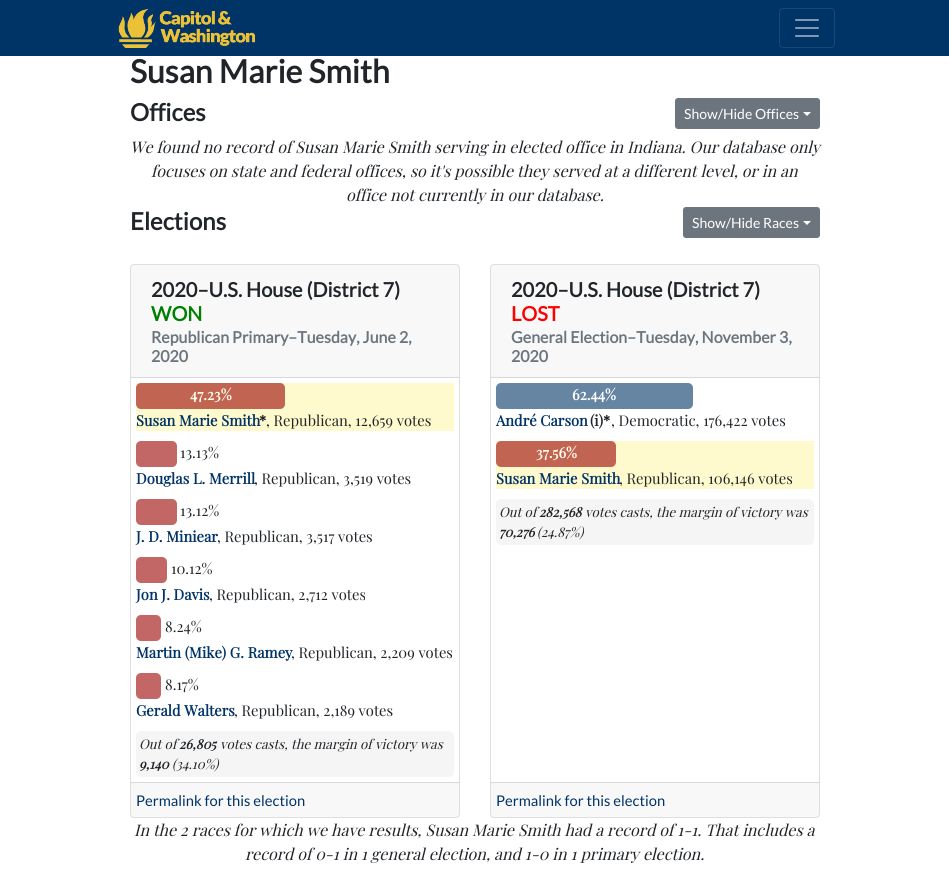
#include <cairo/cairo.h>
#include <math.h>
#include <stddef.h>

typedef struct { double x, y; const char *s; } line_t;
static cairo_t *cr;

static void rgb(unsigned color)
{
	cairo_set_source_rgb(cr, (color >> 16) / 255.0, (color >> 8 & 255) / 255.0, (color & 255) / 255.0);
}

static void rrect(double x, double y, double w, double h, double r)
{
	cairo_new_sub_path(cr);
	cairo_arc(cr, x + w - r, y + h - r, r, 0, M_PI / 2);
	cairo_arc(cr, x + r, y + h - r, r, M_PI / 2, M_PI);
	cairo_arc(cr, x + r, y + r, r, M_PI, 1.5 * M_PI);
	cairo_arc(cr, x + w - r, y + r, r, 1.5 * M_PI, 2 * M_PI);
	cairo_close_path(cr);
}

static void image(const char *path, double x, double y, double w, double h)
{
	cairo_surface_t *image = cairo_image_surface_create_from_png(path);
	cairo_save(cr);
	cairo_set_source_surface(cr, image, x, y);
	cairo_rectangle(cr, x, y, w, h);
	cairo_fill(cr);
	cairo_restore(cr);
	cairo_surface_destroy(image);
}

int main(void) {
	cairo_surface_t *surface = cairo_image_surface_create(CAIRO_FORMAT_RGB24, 949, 884);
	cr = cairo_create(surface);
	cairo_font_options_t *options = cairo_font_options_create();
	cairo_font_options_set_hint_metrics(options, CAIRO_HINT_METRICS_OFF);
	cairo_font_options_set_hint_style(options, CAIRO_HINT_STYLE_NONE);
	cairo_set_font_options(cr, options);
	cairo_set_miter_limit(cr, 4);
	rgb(0xffffff);
	cairo_paint(cr);
	rgb(0x003366);
	cairo_rectangle(cr, 0, 0, 949, 56);
	cairo_fill(cr);
	image("img/1.png", 118, 9, 137, 39);
	rrect(779.5, 8.5, 55, 39, 3.5);
	rgb(0x1a4775);
	cairo_set_line_width(cr, 1);
	cairo_stroke(cr);
	image("img/2.png", 795, 19, 24, 18);
	rgb(0x6c757d);
	rrect(675.5, 98.5, 144, 30, 2.5);
	cairo_fill_preserve(cr);
	cairo_stroke(cr);
	rgb(0xffffff);
	cairo_new_path(cr);
	cairo_move_to(cr, 803, 112);
	cairo_line_to(cr, 811, 112);
	cairo_line_to(cr, 807, 116);
	cairo_close_path(cr);
	cairo_fill(cr);
	rgb(0x6c757d);
	rrect(683.5, 207.5, 136, 30, 2.5);
	cairo_fill_preserve(cr);
	cairo_stroke(cr);
	rgb(0xffffff);
	cairo_new_path(cr);
	cairo_move_to(cr, 803, 221);
	cairo_line_to(cr, 811, 221);
	cairo_line_to(cr, 807, 225);
	cairo_close_path(cr);
	cairo_fill(cr);
	rrect(130.5, 264.5, 329, 553, 3.5);
	rgb(0xdfdfdf);
	cairo_stroke(cr);
	cairo_set_source_rgba(cr, 0, 0, 0, 0.03);
	cairo_rectangle(cr, 131, 265, 328, 112);
	cairo_fill(cr);
	rgb(0xd8d8d8);
	cairo_rectangle(cr, 131, 377, 328, 1);
	cairo_fill(cr);
	rgb(0xfffacd);
	cairo_rectangle(cr, 136, 383, 318, 48);
	cairo_fill(cr);
	rgb(0xc26452);
	rrect(136, 383, 149, 26, 5);
	cairo_fill(cr);
	rgb(0xc26666);
	rrect(136, 441, 41, 26, 5);
	cairo_fill(cr);
	rrect(136, 499, 41, 26, 5);
	cairo_fill(cr);
	rrect(136, 557, 31, 26, 5);
	cairo_fill(cr);
	rrect(136, 615, 25, 26, 5);
	cairo_fill(cr);
	rrect(136, 673, 25, 26, 5);
	cairo_fill(cr);
	rgb(0xf5f5f5);
	rrect(136, 731, 318, 46, 5);
	cairo_fill(cr);
	cairo_set_source_rgba(cr, 0, 0, 0, 0.03);
	cairo_rectangle(cr, 131, 783, 328, 34);
	cairo_fill(cr);
	rgb(0xd8d8d8);
	cairo_rectangle(cr, 131, 782, 328, 1);
	cairo_fill(cr);
	rrect(490.5, 264.5, 329, 553, 3.5);
	rgb(0xdfdfdf);
	cairo_stroke(cr);
	cairo_set_source_rgba(cr, 0, 0, 0, 0.03);
	cairo_rectangle(cr, 491, 265, 328, 112);
	cairo_fill(cr);
	rgb(0xd8d8d8);
	cairo_rectangle(cr, 491, 377, 328, 1);
	cairo_fill(cr);
	rgb(0x6685a3);
	rrect(496, 383, 197, 26, 5);
	cairo_fill(cr);
	rgb(0xfffacd);
	cairo_rectangle(cr, 496, 441, 318, 48);
	cairo_fill(cr);
	rgb(0xc26452);
	rrect(496, 441, 120, 26, 5);
	cairo_fill(cr);
	rgb(0xf5f5f5);
	rrect(496, 499, 318, 46, 5);
	cairo_fill(cr);
	cairo_set_source_rgba(cr, 0, 0, 0, 0.03);
	cairo_rectangle(cr, 491, 783, 328, 34);
	cairo_fill(cr);
	rgb(0xd8d8d8);
	cairo_rectangle(cr, 491, 782, 328, 1);
	cairo_fill(cr);
	cairo_select_font_face(cr, "Lato", CAIRO_FONT_SLANT_NORMAL, CAIRO_FONT_WEIGHT_BOLD);
	cairo_set_font_size(cr, 32);
	rgb(0x212529);
	cairo_move_to(cr, 130, 83);
	cairo_show_text(cr, "Susan Marie Smith");
	cairo_set_font_size(cr, 24);
	cairo_move_to(cr, 130, 121);
	cairo_show_text(cr, "Offices");
	cairo_select_font_face(cr, "Lato", CAIRO_FONT_SLANT_NORMAL, CAIRO_FONT_WEIGHT_NORMAL);
	cairo_set_font_size(cr, 14);
	rgb(0xffffff);
	cairo_move_to(cr, 684, 119);
	cairo_show_text(cr, "Show/Hide Offices");
	cairo_select_font_face(cr, "Playfair Display", CAIRO_FONT_SLANT_ITALIC, CAIRO_FONT_WEIGHT_NORMAL);
	cairo_set_font_size(cr, 16);
	rgb(0x212529);
	{
		static const line_t items[] = {
			{130, 153, "We found no record of Susan Marie Smith serving in elected office in Indiana. Our database only"},
			{151, 177, "focuses on state and federal offices, so it's possible they served at a different level, or in an"},
			{346, 201, "office not currently in our database."},
		};
		for (size_t i = 0; i < sizeof items / sizeof *items; i++) {
			cairo_move_to(cr, items[i].x, items[i].y);
			cairo_show_text(cr, items[i].s);
		}
	}
	cairo_select_font_face(cr, "Lato", CAIRO_FONT_SLANT_NORMAL, CAIRO_FONT_WEIGHT_BOLD);
	cairo_set_font_size(cr, 24);
	cairo_move_to(cr, 130, 230);
	cairo_show_text(cr, "Elections");
	cairo_select_font_face(cr, "Lato", CAIRO_FONT_SLANT_NORMAL, CAIRO_FONT_WEIGHT_NORMAL);
	cairo_set_font_size(cr, 14);
	rgb(0xffffff);
	cairo_move_to(cr, 692, 228);
	cairo_show_text(cr, "Show/Hide Races");
	cairo_select_font_face(cr, "Lato", CAIRO_FONT_SLANT_NORMAL, CAIRO_FONT_WEIGHT_BOLD);
	cairo_set_font_size(cr, 20);
	rgb(0x212529);
	cairo_move_to(cr, 151, 297);
	cairo_show_text(cr, "2020–U.S. House (District 7)");
	rgb(0x008000);
	cairo_move_to(cr, 151, 321);
	cairo_show_text(cr, "WON");
	cairo_set_font_size(cr, 16);
	rgb(0x6c757d);
	cairo_move_to(cr, 151, 343);
	cairo_show_text(cr, "Republican Primary–Tuesday, June 2,");
	cairo_move_to(cr, 151, 362);
	cairo_show_text(cr, "2020");
	cairo_select_font_face(cr, "Playfair Display", CAIRO_FONT_SLANT_NORMAL, CAIRO_FONT_WEIGHT_BOLD);
	cairo_set_font_size(cr, 14.75);
	rgb(0xfffdeb);
	cairo_move_to(cr, 190, 400);
	cairo_show_text(cr, "47.23%");
	rgb(0x003366);
	cairo_move_to(cr, 136, 426);
	cairo_show_text(cr, "Susan Marie Smith");
	rgb(0x212529);
	cairo_move_to(cr, 259, 426);
	cairo_show_text(cr, "*");
	cairo_select_font_face(cr, "Playfair Display", CAIRO_FONT_SLANT_NORMAL, CAIRO_FONT_WEIGHT_NORMAL);
	cairo_move_to(cr, 266, 426);
	cairo_show_text(cr, ", Republican, 12,659 votes");
	cairo_move_to(cr, 180, 458);
	cairo_show_text(cr, "13.13%");
	cairo_select_font_face(cr, "Playfair Display", CAIRO_FONT_SLANT_NORMAL, CAIRO_FONT_WEIGHT_BOLD);
	rgb(0x003366);
	cairo_move_to(cr, 136, 484);
	cairo_show_text(cr, "Douglas L. Merrill");
	cairo_select_font_face(cr, "Playfair Display", CAIRO_FONT_SLANT_NORMAL, CAIRO_FONT_WEIGHT_NORMAL);
	rgb(0x212529);
	cairo_move_to(cr, 254, 484);
	cairo_show_text(cr, ", Republican, 3,519 votes");
	cairo_move_to(cr, 180, 516);
	cairo_show_text(cr, "13.12%");
	cairo_select_font_face(cr, "Playfair Display", CAIRO_FONT_SLANT_NORMAL, CAIRO_FONT_WEIGHT_BOLD);
	rgb(0x003366);
	cairo_move_to(cr, 136, 542);
	cairo_show_text(cr, "J. D. Miniear");
	cairo_select_font_face(cr, "Playfair Display", CAIRO_FONT_SLANT_NORMAL, CAIRO_FONT_WEIGHT_NORMAL);
	rgb(0x212529);
	cairo_move_to(cr, 217, 542);
	cairo_show_text(cr, ", Republican, 3,517 votes");
	cairo_move_to(cr, 171, 574);
	cairo_show_text(cr, "10.12%");
	cairo_select_font_face(cr, "Playfair Display", CAIRO_FONT_SLANT_NORMAL, CAIRO_FONT_WEIGHT_BOLD);
	rgb(0x003366);
	cairo_move_to(cr, 136, 600);
	cairo_show_text(cr, "Jon J. Davis");
	cairo_select_font_face(cr, "Playfair Display", CAIRO_FONT_SLANT_NORMAL, CAIRO_FONT_WEIGHT_NORMAL);
	rgb(0x212529);
	cairo_move_to(cr, 209, 600);
	cairo_show_text(cr, ", Republican, 2,712 votes");
	cairo_move_to(cr, 165, 632);
	cairo_show_text(cr, "8.24%");
	cairo_select_font_face(cr, "Playfair Display", CAIRO_FONT_SLANT_NORMAL, CAIRO_FONT_WEIGHT_BOLD);
	rgb(0x003366);
	cairo_move_to(cr, 136, 658);
	cairo_show_text(cr, "Martin (Mike) G. Ramey");
	cairo_select_font_face(cr, "Playfair Display", CAIRO_FONT_SLANT_NORMAL, CAIRO_FONT_WEIGHT_NORMAL);
	rgb(0x212529);
	cairo_move_to(cr, 291, 658);
	cairo_show_text(cr, ", Republican, 2,209 votes");
	cairo_move_to(cr, 165, 690);
	cairo_show_text(cr, "8.17%");
	cairo_select_font_face(cr, "Playfair Display", CAIRO_FONT_SLANT_NORMAL, CAIRO_FONT_WEIGHT_BOLD);
	rgb(0x003366);
	cairo_move_to(cr, 136, 716);
	cairo_show_text(cr, "Gerald Walters");
	cairo_select_font_face(cr, "Playfair Display", CAIRO_FONT_SLANT_NORMAL, CAIRO_FONT_WEIGHT_NORMAL);
	rgb(0x212529);
	cairo_move_to(cr, 234, 716);
	cairo_show_text(cr, ", Republican, 2,189 votes");
	cairo_select_font_face(cr, "Playfair Display", CAIRO_FONT_SLANT_ITALIC, CAIRO_FONT_WEIGHT_NORMAL);
	cairo_set_font_size(cr, 13.3);
	cairo_move_to(cr, 139, 749);
	cairo_show_text(cr, "Out of");
	cairo_select_font_face(cr, "Playfair Display", CAIRO_FONT_SLANT_ITALIC, CAIRO_FONT_WEIGHT_BOLD);
	cairo_move_to(cr, 179, 749);
	cairo_show_text(cr, "26,805");
	cairo_select_font_face(cr, "Playfair Display", CAIRO_FONT_SLANT_ITALIC, CAIRO_FONT_WEIGHT_NORMAL);
	cairo_move_to(cr, 220, 749);
	cairo_show_text(cr, "votes casts, the margin of victory was");
	cairo_select_font_face(cr, "Playfair Display", CAIRO_FONT_SLANT_ITALIC, CAIRO_FONT_WEIGHT_BOLD);
	cairo_move_to(cr, 139, 769);
	cairo_show_text(cr, "9,140");
	cairo_select_font_face(cr, "Playfair Display", CAIRO_FONT_SLANT_ITALIC, CAIRO_FONT_WEIGHT_NORMAL);
	cairo_move_to(cr, 172, 769);
	cairo_show_text(cr, "(34.10%)");
	cairo_select_font_face(cr, "Lato", CAIRO_FONT_SLANT_NORMAL, CAIRO_FONT_WEIGHT_NORMAL);
	cairo_set_font_size(cr, 14.75);
	rgb(0x003366);
	cairo_move_to(cr, 136, 806);
	cairo_show_text(cr, "Permalink for this election");
	cairo_select_font_face(cr, "Lato", CAIRO_FONT_SLANT_NORMAL, CAIRO_FONT_WEIGHT_BOLD);
	cairo_set_font_size(cr, 20);
	rgb(0x212529);
	cairo_move_to(cr, 511, 297);
	cairo_show_text(cr, "2020–U.S. House (District 7)");
	rgb(0xff0000);
	cairo_move_to(cr, 511, 321);
	cairo_show_text(cr, "LOST");
	cairo_set_font_size(cr, 16);
	rgb(0x6c757d);
	cairo_move_to(cr, 511, 343);
	cairo_show_text(cr, "General Election–Tuesday, November 3,");
	cairo_move_to(cr, 511, 362);
	cairo_show_text(cr, "2020");
	cairo_select_font_face(cr, "Playfair Display", CAIRO_FONT_SLANT_NORMAL, CAIRO_FONT_WEIGHT_BOLD);
	cairo_set_font_size(cr, 14.75);
	rgb(0xffffff);
	cairo_move_to(cr, 572, 400);
	cairo_show_text(cr, "62.44%");
	rgb(0x003366);
	cairo_move_to(cr, 496, 426);
	cairo_show_text(cr, "André Carson");
	rgb(0x212529);
	cairo_move_to(cr, 590, 426);
	cairo_show_text(cr, "(i)*");
	cairo_select_font_face(cr, "Playfair Display", CAIRO_FONT_SLANT_NORMAL, CAIRO_FONT_WEIGHT_NORMAL);
	cairo_move_to(cr, 611, 426);
	cairo_show_text(cr, ", Democratic, 176,422 votes");
	cairo_select_font_face(cr, "Playfair Display", CAIRO_FONT_SLANT_NORMAL, CAIRO_FONT_WEIGHT_BOLD);
	rgb(0xfffdeb);
	cairo_move_to(cr, 536, 458);
	cairo_show_text(cr, "37.56%");
	rgb(0x003366);
	cairo_move_to(cr, 496, 484);
	cairo_show_text(cr, "Susan Marie Smith");
	cairo_select_font_face(cr, "Playfair Display", CAIRO_FONT_SLANT_NORMAL, CAIRO_FONT_WEIGHT_NORMAL);
	rgb(0x212529);
	cairo_move_to(cr, 619, 484);
	cairo_show_text(cr, ", Republican, 106,146 votes");
	cairo_select_font_face(cr, "Playfair Display", CAIRO_FONT_SLANT_ITALIC, CAIRO_FONT_WEIGHT_NORMAL);
	cairo_set_font_size(cr, 13.3);
	cairo_move_to(cr, 499, 517);
	cairo_show_text(cr, "Out of");
	cairo_select_font_face(cr, "Playfair Display", CAIRO_FONT_SLANT_ITALIC, CAIRO_FONT_WEIGHT_BOLD);
	cairo_move_to(cr, 539, 517);
	cairo_show_text(cr, "282,568");
	cairo_select_font_face(cr, "Playfair Display", CAIRO_FONT_SLANT_ITALIC, CAIRO_FONT_WEIGHT_NORMAL);
	cairo_move_to(cr, 585, 517);
	cairo_show_text(cr, "votes casts, the margin of victory was");
	cairo_select_font_face(cr, "Playfair Display", CAIRO_FONT_SLANT_ITALIC, CAIRO_FONT_WEIGHT_BOLD);
	cairo_move_to(cr, 499, 537);
	cairo_show_text(cr, "70,276");
	cairo_select_font_face(cr, "Playfair Display", CAIRO_FONT_SLANT_ITALIC, CAIRO_FONT_WEIGHT_NORMAL);
	cairo_move_to(cr, 537, 537);
	cairo_show_text(cr, "(24.87%)");
	cairo_select_font_face(cr, "Lato", CAIRO_FONT_SLANT_NORMAL, CAIRO_FONT_WEIGHT_NORMAL);
	cairo_set_font_size(cr, 14.75);
	rgb(0x003366);
	cairo_move_to(cr, 496, 806);
	cairo_show_text(cr, "Permalink for this election");
	cairo_select_font_face(cr, "Playfair Display", CAIRO_FONT_SLANT_ITALIC, CAIRO_FONT_WEIGHT_NORMAL);
	cairo_set_font_size(cr, 16);
	rgb(0x212529);
	cairo_move_to(cr, 134, 836);
	cairo_show_text(cr, "In the 2 races for which we have results, Susan Marie Smith had a record of 1-1. That includes a");
	cairo_move_to(cr, 245, 860);
	cairo_show_text(cr, "record of 0-1 in 1 general election, and 1-0 in 1 primary election.");
	cairo_surface_write_to_png(surface, "page.png");
	cairo_font_options_destroy(options);
	cairo_destroy(cr);
	cairo_surface_destroy(surface);
	return 0;
}
